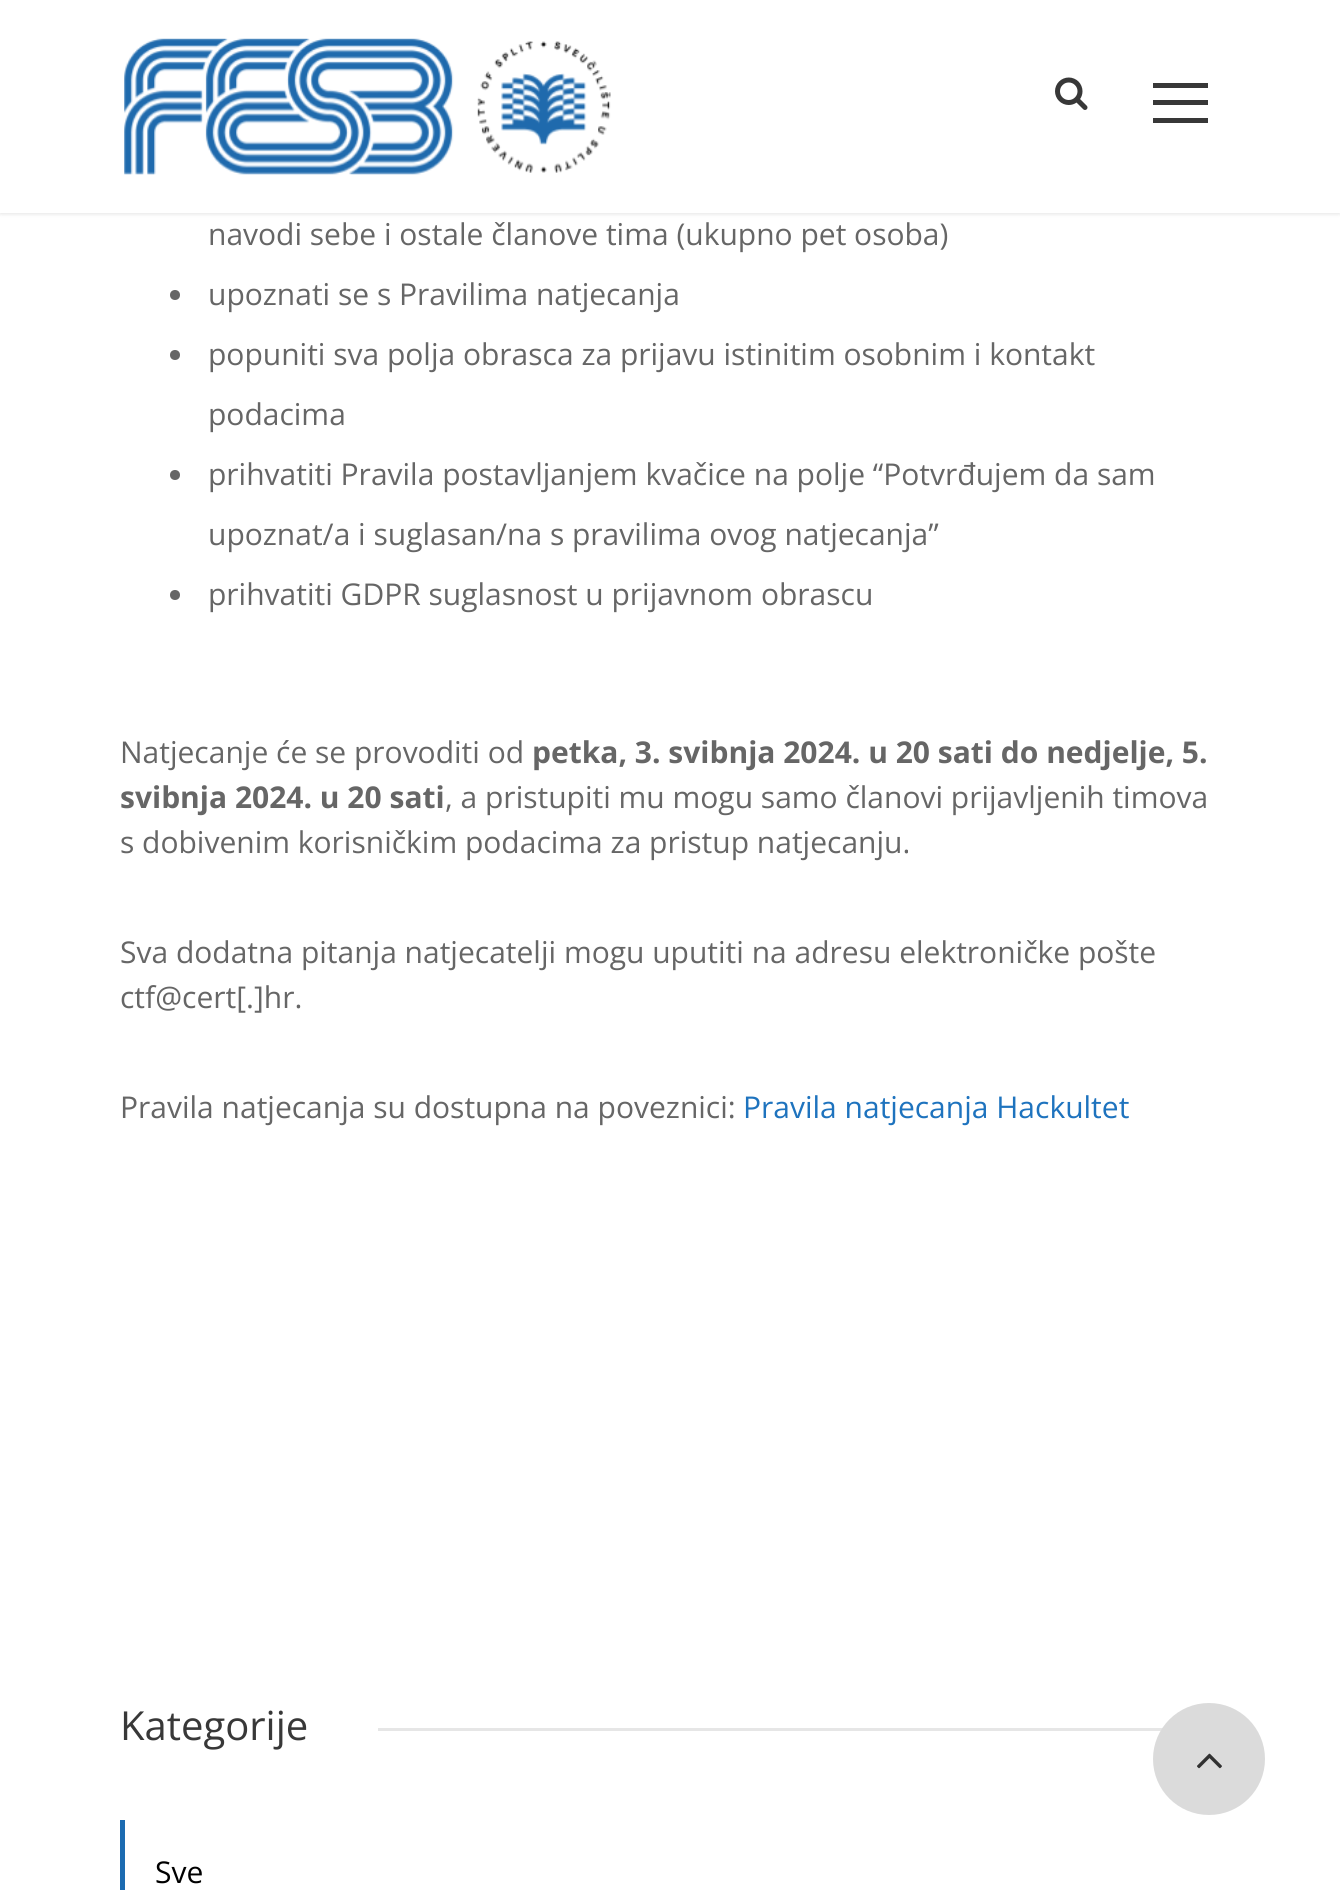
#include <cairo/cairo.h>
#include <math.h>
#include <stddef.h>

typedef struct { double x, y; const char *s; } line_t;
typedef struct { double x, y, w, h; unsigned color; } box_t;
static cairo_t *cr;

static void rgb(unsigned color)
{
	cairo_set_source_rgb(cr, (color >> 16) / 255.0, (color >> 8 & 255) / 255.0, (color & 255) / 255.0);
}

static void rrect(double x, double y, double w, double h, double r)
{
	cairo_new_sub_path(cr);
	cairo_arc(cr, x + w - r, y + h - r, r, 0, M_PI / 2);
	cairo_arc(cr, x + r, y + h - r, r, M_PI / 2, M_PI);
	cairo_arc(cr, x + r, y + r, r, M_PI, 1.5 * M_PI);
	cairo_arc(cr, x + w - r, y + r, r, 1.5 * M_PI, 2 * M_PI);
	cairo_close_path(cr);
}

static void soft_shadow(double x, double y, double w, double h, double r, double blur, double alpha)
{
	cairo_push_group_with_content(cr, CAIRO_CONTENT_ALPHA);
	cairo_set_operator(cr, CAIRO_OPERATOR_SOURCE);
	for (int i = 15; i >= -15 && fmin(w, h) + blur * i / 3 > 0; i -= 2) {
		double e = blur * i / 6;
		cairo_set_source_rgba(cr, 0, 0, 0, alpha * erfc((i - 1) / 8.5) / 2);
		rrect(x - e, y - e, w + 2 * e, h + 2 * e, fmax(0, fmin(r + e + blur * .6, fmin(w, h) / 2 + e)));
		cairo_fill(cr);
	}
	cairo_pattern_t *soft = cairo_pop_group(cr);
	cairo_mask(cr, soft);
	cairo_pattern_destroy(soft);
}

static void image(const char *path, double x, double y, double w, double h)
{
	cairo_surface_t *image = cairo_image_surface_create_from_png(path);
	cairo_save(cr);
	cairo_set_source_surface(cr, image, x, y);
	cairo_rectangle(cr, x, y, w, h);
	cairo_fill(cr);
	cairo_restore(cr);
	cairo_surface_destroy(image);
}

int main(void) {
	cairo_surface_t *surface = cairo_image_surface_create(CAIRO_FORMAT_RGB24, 1340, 1890);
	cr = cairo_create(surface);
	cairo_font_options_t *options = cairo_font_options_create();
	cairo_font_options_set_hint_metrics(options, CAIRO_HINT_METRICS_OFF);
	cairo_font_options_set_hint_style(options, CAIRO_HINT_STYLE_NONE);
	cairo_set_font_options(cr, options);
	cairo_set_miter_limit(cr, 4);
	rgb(0xffffff);
	cairo_paint(cr);
	rgb(0x000000);
	soft_shadow(0, 0, 1340, 213, 0, 2.5, 0.15);
	rgb(0xffffff);
	cairo_rectangle(cr, 0, 0, 1340, 213);
	cairo_fill(cr);
	image("img/1.png", 124, 38, 487, 137);
	image("img/2.png", 1055, 77, 33, 33);
	{
		static const box_t items[] = {
			{1153, 83, 55, 5, 0x383838},
			{1153, 100, 55, 5, 0x383838},
			{1153, 118, 55, 5, 0x383838},
		};
		for (size_t i = 0; i < sizeof items / sizeof *items; i++) {
			rgb(items[i].color);
			cairo_rectangle(cr, items[i].x, items[i].y, items[i].w, items[i].h);
			cairo_fill(cr);
		}
	}
	rgb(0x666666);
	cairo_arc(cr, 175, 295, 5, 0, 2 * M_PI);
	cairo_fill(cr);
	cairo_arc(cr, 175, 355, 5, 0, 2 * M_PI);
	cairo_fill(cr);
	cairo_arc(cr, 175, 475, 5, 0, 2 * M_PI);
	cairo_fill(cr);
	cairo_arc(cr, 175, 595, 5, 0, 2 * M_PI);
	cairo_fill(cr);
	rgb(0xe6e6e6);
	cairo_rectangle(cr, 378, 1728, 785, 3);
	cairo_fill(cr);
	rgb(0x1c6bb1);
	cairo_rectangle(cr, 120, 1820, 5, 70);
	cairo_fill(cr);
	rgb(0xdbdbdb);
	cairo_arc(cr, 1209, 1759, 56, 0, 2 * M_PI);
	cairo_fill(cr);
	image("img/3.png", 1197, 1753, 25, 16);
	cairo_select_font_face(cr, "Open Sans", CAIRO_FONT_SLANT_NORMAL, CAIRO_FONT_WEIGHT_NORMAL);
	cairo_set_font_size(cr, 30);
	rgb(0x666666);
	{
		static const line_t items[] = {
			{208, 245, "navodi sebe i ostale članove tima (ukupno pet osoba)"},
			{208, 305, "upoznati se s Pravilima natjecanja"},
			{208, 365, "popuniti sva polja obrasca za prijavu istinitim osobnim i kontakt"},
			{208, 425, "podacima"},
			{208, 485, "prihvatiti Pravila postavljanjem kvačice na polje “Potvrđujem da sam"},
			{208, 545, "upoznat/a i suglasan/na s pravilima ovog natjecanja”"},
			{208, 605, "prihvatiti GDPR suglasnost u prijavnom obrascu"},
			{120, 763, "Natjecanje će se provoditi od"},
		};
		for (size_t i = 0; i < sizeof items / sizeof *items; i++) {
			cairo_move_to(cr, items[i].x, items[i].y);
			cairo_show_text(cr, items[i].s);
		}
	}
	cairo_select_font_face(cr, "Open Sans", CAIRO_FONT_SLANT_NORMAL, CAIRO_FONT_WEIGHT_BOLD);
	cairo_move_to(cr, 532, 763);
	cairo_show_text(cr, "petka, 3. svibnja 2024. u 20 sati do nedjelje, 5.");
	cairo_move_to(cr, 120, 808);
	cairo_show_text(cr, "svibnja 2024. u 20 sati");
	cairo_select_font_face(cr, "Open Sans", CAIRO_FONT_SLANT_NORMAL, CAIRO_FONT_WEIGHT_NORMAL);
	{
		static const line_t items[] = {
			{445, 808, ", a pristupiti mu mogu samo članovi prijavljenih timova"},
			{120, 853, "s dobivenim korisničkim podacima za pristup natjecanju."},
			{120, 963, "Sva dodatna pitanja natjecatelji mogu uputiti na adresu elektroničke pošte"},
			{120, 1008, "ctf@cert[.]hr."},
			{120, 1118, "Pravila natjecanja su dostupna na poveznici:"},
		};
		for (size_t i = 0; i < sizeof items / sizeof *items; i++) {
			cairo_move_to(cr, items[i].x, items[i].y);
			cairo_show_text(cr, items[i].s);
		}
	}
	rgb(0x1e73be);
	cairo_move_to(cr, 743, 1118);
	cairo_show_text(cr, "Pravila natjecanja Hackultet");
	cairo_set_font_size(cr, 40);
	rgb(0x383838);
	cairo_move_to(cr, 120, 1740);
	cairo_show_text(cr, "Kategorije");
	cairo_set_font_size(cr, 30);
	rgb(0x000000);
	cairo_move_to(cr, 155, 1883);
	cairo_show_text(cr, "Sve");
	cairo_surface_write_to_png(surface, "page.png");
	cairo_font_options_destroy(options);
	cairo_destroy(cr);
	cairo_surface_destroy(surface);
	return 0;
}
